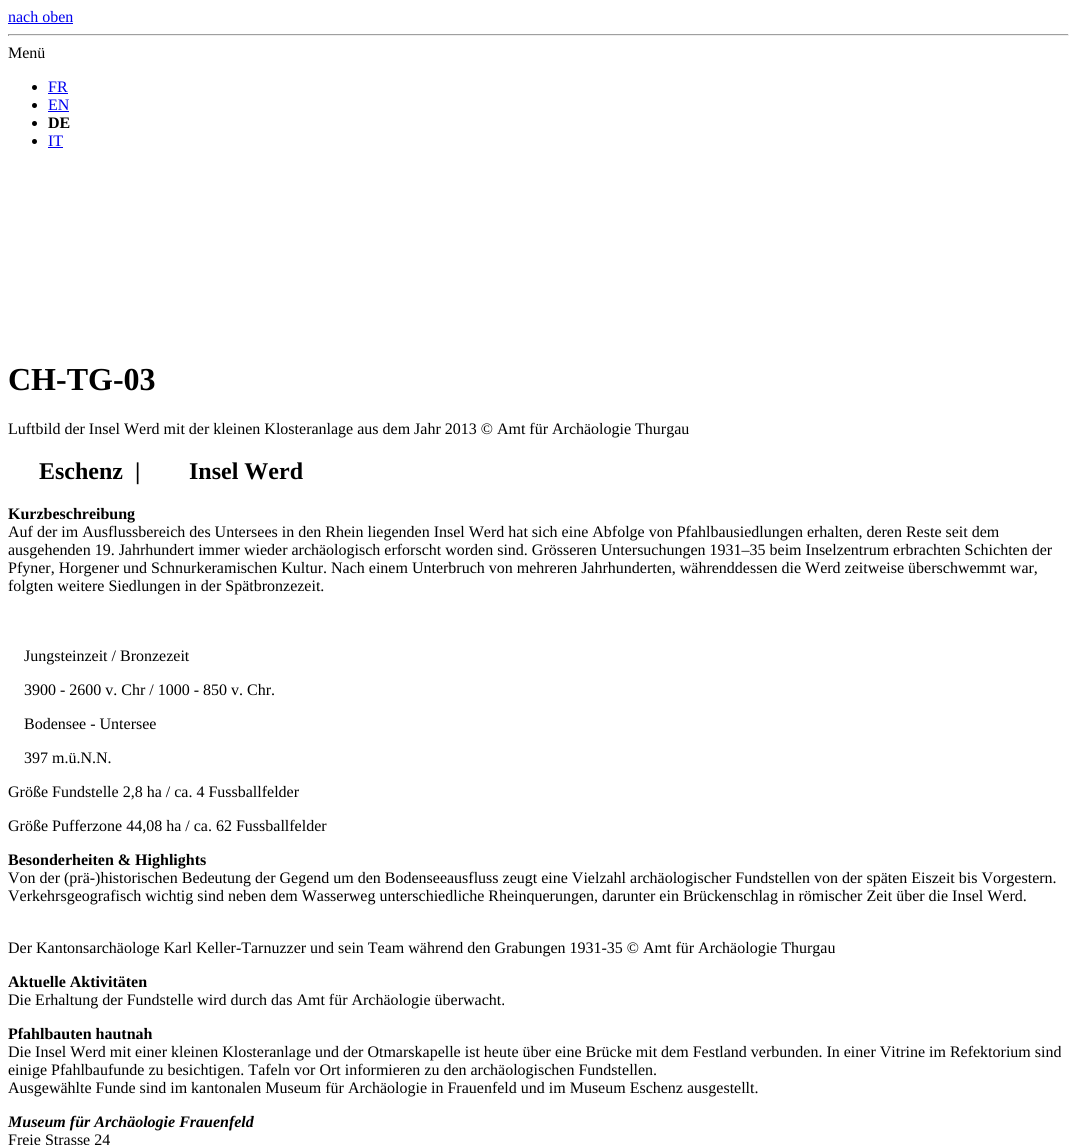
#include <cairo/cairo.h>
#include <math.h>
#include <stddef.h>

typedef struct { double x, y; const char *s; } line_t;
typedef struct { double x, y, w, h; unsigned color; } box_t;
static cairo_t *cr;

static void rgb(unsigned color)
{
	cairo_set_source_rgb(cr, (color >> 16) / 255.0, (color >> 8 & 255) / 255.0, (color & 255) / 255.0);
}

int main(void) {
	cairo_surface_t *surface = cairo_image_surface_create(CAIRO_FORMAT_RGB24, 1077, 1145);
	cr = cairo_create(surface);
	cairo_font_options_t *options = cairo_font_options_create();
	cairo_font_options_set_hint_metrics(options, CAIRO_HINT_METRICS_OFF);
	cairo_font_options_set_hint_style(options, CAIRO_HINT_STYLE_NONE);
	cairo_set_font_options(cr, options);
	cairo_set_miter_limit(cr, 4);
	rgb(0xffffff);
	cairo_paint(cr);
	{
		static const box_t items[] = {
			{8, 23, 65, 1, 0x0000ee},
			{8, 34, 1061, 1, 0x9f9f9f},
			{1068, 34, 1, 2, 0xeeeeee},
			{8, 35, 1061, 1, 0xeeeeee},
			{8, 34, 1, 2, 0x9f9f9f},
		};
		for (size_t i = 0; i < sizeof items / sizeof *items; i++) {
			rgb(items[i].color);
			cairo_rectangle(cr, items[i].x, items[i].y, items[i].w, items[i].h);
			cairo_fill(cr);
		}
	}
	rgb(0x000000);
	cairo_arc(cr, 34.5, 87.5, 2.5, 0, 2 * M_PI);
	cairo_fill(cr);
	rgb(0x0000ee);
	cairo_rectangle(cr, 48, 93, 20, 1);
	cairo_fill(cr);
	rgb(0x000000);
	cairo_arc(cr, 34.5, 105.5, 2.5, 0, 2 * M_PI);
	cairo_fill(cr);
	rgb(0x0000ee);
	cairo_rectangle(cr, 48, 111, 21, 1);
	cairo_fill(cr);
	rgb(0x000000);
	cairo_arc(cr, 34.5, 123.5, 2.5, 0, 2 * M_PI);
	cairo_fill(cr);
	cairo_arc(cr, 34.5, 141.5, 2.5, 0, 2 * M_PI);
	cairo_fill(cr);
	rgb(0x0000ee);
	cairo_rectangle(cr, 48, 147, 15, 1);
	cairo_fill(cr);
	cairo_select_font_face(cr, "Liberation Serif", CAIRO_FONT_SLANT_NORMAL, CAIRO_FONT_WEIGHT_NORMAL);
	cairo_set_font_size(cr, 16);
	cairo_move_to(cr, 8, 22);
	cairo_show_text(cr, "nach oben");
	rgb(0x000000);
	cairo_move_to(cr, 8, 58);
	cairo_show_text(cr, "Menü");
	rgb(0x0000ee);
	cairo_move_to(cr, 48, 92);
	cairo_show_text(cr, "FR");
	cairo_move_to(cr, 48, 110);
	cairo_show_text(cr, "EN");
	cairo_select_font_face(cr, "Liberation Serif", CAIRO_FONT_SLANT_NORMAL, CAIRO_FONT_WEIGHT_BOLD);
	rgb(0x000000);
	cairo_move_to(cr, 48, 128);
	cairo_show_text(cr, "DE");
	cairo_select_font_face(cr, "Liberation Serif", CAIRO_FONT_SLANT_NORMAL, CAIRO_FONT_WEIGHT_NORMAL);
	rgb(0x0000ee);
	cairo_move_to(cr, 48, 146);
	cairo_show_text(cr, "IT");
	cairo_select_font_face(cr, "Liberation Serif", CAIRO_FONT_SLANT_NORMAL, CAIRO_FONT_WEIGHT_BOLD);
	cairo_set_font_size(cr, 32);
	rgb(0x000000);
	cairo_move_to(cr, 8, 390);
	cairo_show_text(cr, "CH-TG-03");
	cairo_select_font_face(cr, "Liberation Serif", CAIRO_FONT_SLANT_NORMAL, CAIRO_FONT_WEIGHT_NORMAL);
	cairo_set_font_size(cr, 16);
	cairo_move_to(cr, 8, 434);
	cairo_show_text(cr, "Luftbild der Insel Werd mit der kleinen Klosteranlage aus dem Jahr 2013 © Amt für Archäologie Thurgau");
	cairo_select_font_face(cr, "Liberation Serif", CAIRO_FONT_SLANT_NORMAL, CAIRO_FONT_WEIGHT_BOLD);
	cairo_set_font_size(cr, 24);
	cairo_move_to(cr, 39, 479);
	cairo_show_text(cr, "Eschenz  |");
	cairo_move_to(cr, 189, 479);
	cairo_show_text(cr, "Insel Werd");
	cairo_set_font_size(cr, 16);
	cairo_move_to(cr, 8, 519);
	cairo_show_text(cr, "Kurzbeschreibung");
	cairo_select_font_face(cr, "Liberation Serif", CAIRO_FONT_SLANT_NORMAL, CAIRO_FONT_WEIGHT_NORMAL);
	{
		static const line_t items[] = {
			{8, 537, "Auf der im Ausflussbereich des Untersees in den Rhein liegenden Insel Werd hat sich eine Abfolge von Pfahlbausiedlungen erhalten, deren Reste seit dem"},
			{8, 555, "ausgehenden 19. Jahrhundert immer wieder archäologisch erforscht worden sind. Grösseren Untersuchungen 1931–35 beim Inselzentrum erbrachten Schichten der"},
			{8, 573, "Pfyner, Horgener und Schnurkeramischen Kultur. Nach einem Unterbruch von mehreren Jahrhunderten, währenddessen die Werd zeitweise überschwemmt war,"},
			{8, 591, "folgten weitere Siedlungen in der Spätbronzezeit."},
			{24, 661, "Jungsteinzeit / Bronzezeit"},
			{24, 695, "3900 - 2600 v. Chr / 1000 - 850 v. Chr."},
			{24, 729, "Bodensee - Untersee"},
			{24, 763, "397 m.ü.N.N."},
			{8, 797, "Größe Fundstelle 2,8 ha / ca. 4 Fussballfelder"},
			{8, 831, "Größe Pufferzone 44,08 ha / ca. 62 Fussballfelder"},
		};
		for (size_t i = 0; i < sizeof items / sizeof *items; i++) {
			cairo_move_to(cr, items[i].x, items[i].y);
			cairo_show_text(cr, items[i].s);
		}
	}
	cairo_select_font_face(cr, "Liberation Serif", CAIRO_FONT_SLANT_NORMAL, CAIRO_FONT_WEIGHT_BOLD);
	cairo_move_to(cr, 8, 865);
	cairo_show_text(cr, "Besonderheiten & Highlights");
	cairo_select_font_face(cr, "Liberation Serif", CAIRO_FONT_SLANT_NORMAL, CAIRO_FONT_WEIGHT_NORMAL);
	{
		static const line_t items[] = {
			{8, 883, "Von der (prä-)historischen Bedeutung der Gegend um den Bodenseeausfluss zeugt eine Vielzahl archäologischer Fundstellen von der späten Eiszeit bis Vorgestern."},
			{8, 901, "Verkehrsgeografisch wichtig sind neben dem Wasserweg unterschiedliche Rheinquerungen, darunter ein Brückenschlag in römischer Zeit über die Insel Werd."},
			{8, 953, "Der Kantonsarchäologe Karl Keller-Tarnuzzer und sein Team während den Grabungen 1931-35 © Amt für Archäologie Thurgau"},
		};
		for (size_t i = 0; i < sizeof items / sizeof *items; i++) {
			cairo_move_to(cr, items[i].x, items[i].y);
			cairo_show_text(cr, items[i].s);
		}
	}
	cairo_select_font_face(cr, "Liberation Serif", CAIRO_FONT_SLANT_NORMAL, CAIRO_FONT_WEIGHT_BOLD);
	cairo_move_to(cr, 8, 987);
	cairo_show_text(cr, "Aktuelle Aktivitäten");
	cairo_select_font_face(cr, "Liberation Serif", CAIRO_FONT_SLANT_NORMAL, CAIRO_FONT_WEIGHT_NORMAL);
	cairo_move_to(cr, 8, 1005);
	cairo_show_text(cr, "Die Erhaltung der Fundstelle wird durch das Amt für Archäologie überwacht.");
	cairo_select_font_face(cr, "Liberation Serif", CAIRO_FONT_SLANT_NORMAL, CAIRO_FONT_WEIGHT_BOLD);
	cairo_move_to(cr, 8, 1039);
	cairo_show_text(cr, "Pfahlbauten hautnah");
	cairo_select_font_face(cr, "Liberation Serif", CAIRO_FONT_SLANT_NORMAL, CAIRO_FONT_WEIGHT_NORMAL);
	{
		static const line_t items[] = {
			{8, 1057, "Die Insel Werd mit einer kleinen Klosteranlage und der Otmarskapelle ist heute über eine Brücke mit dem Festland verbunden. In einer Vitrine im Refektorium sind"},
			{8, 1075, "einige Pfahlbaufunde zu besichtigen. Tafeln vor Ort informieren zu den archäologischen Fundstellen."},
			{8, 1093, "Ausgewählte Funde sind im kantonalen Museum für Archäologie in Frauenfeld und im Museum Eschenz ausgestellt."},
		};
		for (size_t i = 0; i < sizeof items / sizeof *items; i++) {
			cairo_move_to(cr, items[i].x, items[i].y);
			cairo_show_text(cr, items[i].s);
		}
	}
	cairo_select_font_face(cr, "Liberation Serif", CAIRO_FONT_SLANT_ITALIC, CAIRO_FONT_WEIGHT_BOLD);
	cairo_move_to(cr, 8, 1127);
	cairo_show_text(cr, "Museum für Archäologie Frauenfeld");
	cairo_select_font_face(cr, "Liberation Serif", CAIRO_FONT_SLANT_NORMAL, CAIRO_FONT_WEIGHT_NORMAL);
	cairo_move_to(cr, 8, 1145);
	cairo_show_text(cr, "Freie Strasse 24");
	cairo_surface_write_to_png(surface, "page.png");
	cairo_font_options_destroy(options);
	cairo_destroy(cr);
	cairo_surface_destroy(surface);
	return 0;
}
